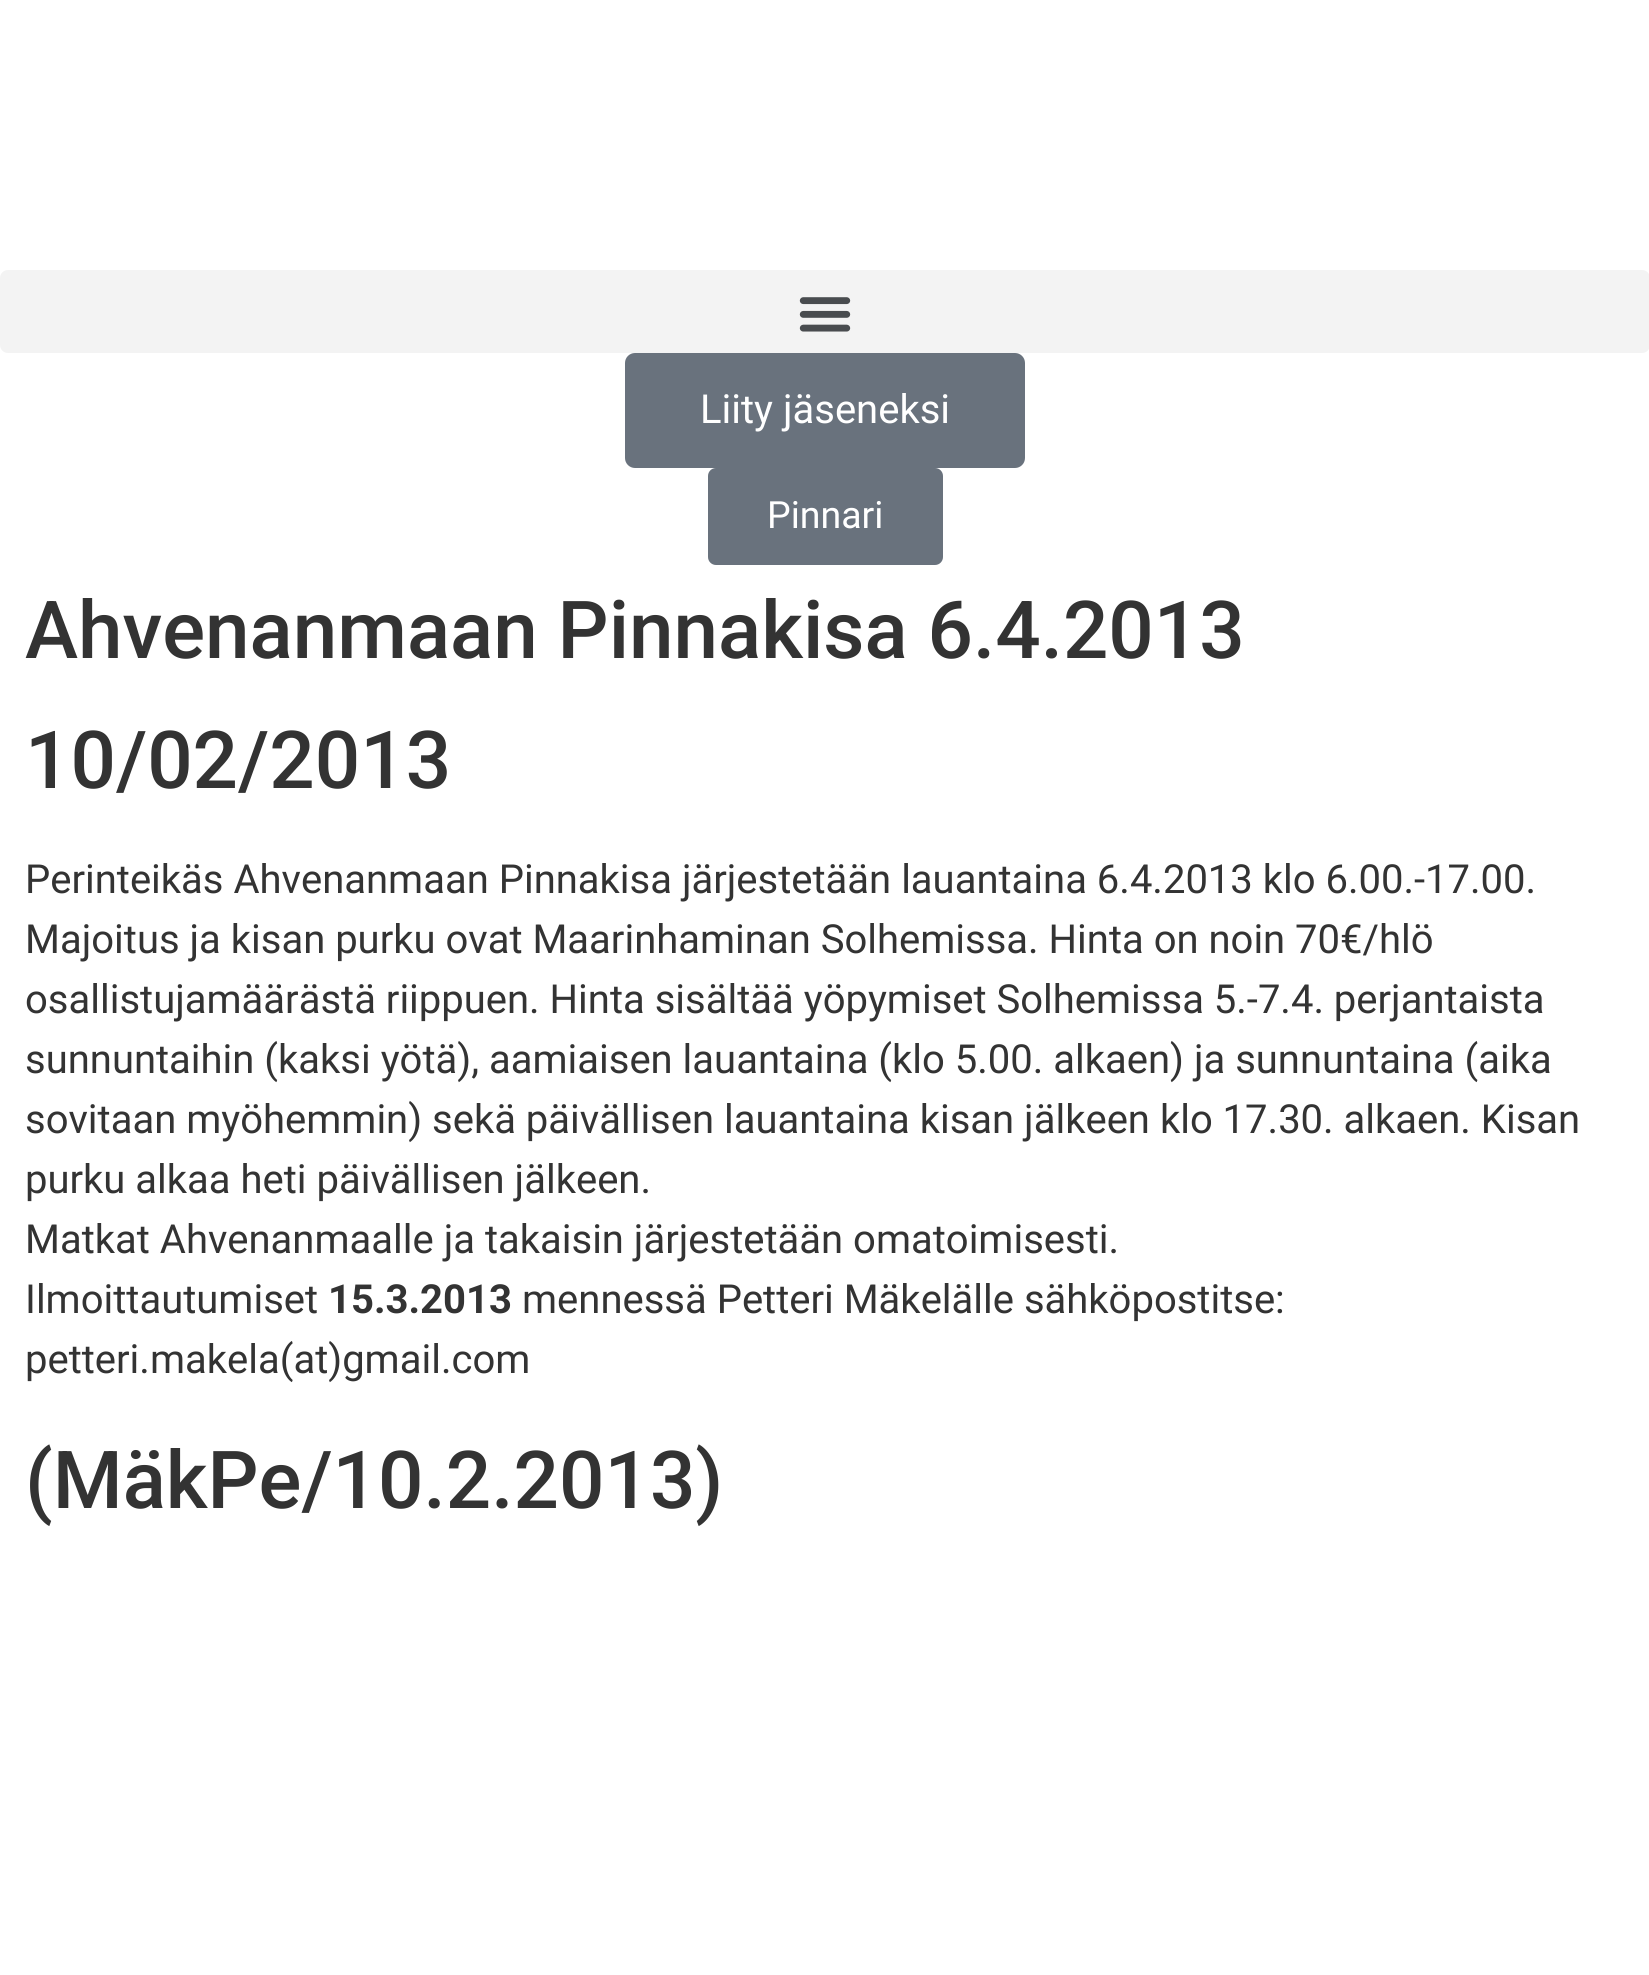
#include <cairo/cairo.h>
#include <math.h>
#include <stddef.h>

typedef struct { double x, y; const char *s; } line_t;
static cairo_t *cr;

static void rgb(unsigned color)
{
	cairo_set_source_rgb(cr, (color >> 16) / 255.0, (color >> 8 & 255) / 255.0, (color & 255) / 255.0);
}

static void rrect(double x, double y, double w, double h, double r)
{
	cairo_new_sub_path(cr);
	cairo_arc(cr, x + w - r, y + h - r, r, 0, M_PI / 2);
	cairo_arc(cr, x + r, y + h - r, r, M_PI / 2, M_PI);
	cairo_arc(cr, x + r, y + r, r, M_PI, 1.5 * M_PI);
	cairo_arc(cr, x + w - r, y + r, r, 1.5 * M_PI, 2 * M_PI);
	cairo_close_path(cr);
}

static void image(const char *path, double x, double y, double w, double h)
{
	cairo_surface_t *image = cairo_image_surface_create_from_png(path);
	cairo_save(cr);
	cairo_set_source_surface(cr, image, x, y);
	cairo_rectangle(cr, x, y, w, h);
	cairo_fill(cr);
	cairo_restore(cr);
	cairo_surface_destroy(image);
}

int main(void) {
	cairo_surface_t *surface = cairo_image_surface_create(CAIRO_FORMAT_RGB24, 1649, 1975);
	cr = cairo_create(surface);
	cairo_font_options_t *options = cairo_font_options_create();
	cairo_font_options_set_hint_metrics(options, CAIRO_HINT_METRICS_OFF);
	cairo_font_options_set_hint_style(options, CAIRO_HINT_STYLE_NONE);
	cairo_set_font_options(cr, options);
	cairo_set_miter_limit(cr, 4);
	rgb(0xffffff);
	cairo_paint(cr);
	rgb(0xf3f3f3);
	rrect(0, 270, 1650, 83, 8);
	cairo_fill(cr);
	image("img/1.png", 799, 297, 52, 35);
	rgb(0x69727d);
	rrect(625, 353, 400, 115, 10);
	cairo_fill(cr);
	rrect(708, 468, 235, 97, 8);
	cairo_fill(cr);
	cairo_select_font_face(cr, "Roboto", CAIRO_FONT_SLANT_NORMAL, CAIRO_FONT_WEIGHT_NORMAL);
	cairo_set_font_size(cr, 40);
	rgb(0xffffff);
	cairo_move_to(cr, 700, 423);
	cairo_show_text(cr, "Liity jäseneksi");
	cairo_set_font_size(cr, 37.5);
	cairo_move_to(cr, 767, 528);
	cairo_show_text(cr, "Pinnari");
	cairo_select_font_face(cr, "Roboto Medium", CAIRO_FONT_SLANT_NORMAL, CAIRO_FONT_WEIGHT_NORMAL);
	cairo_set_font_size(cr, 80);
	rgb(0x333333);
	cairo_move_to(cr, 25, 658);
	cairo_show_text(cr, "Ahvenanmaan Pinnakisa 6.4.2013");
	cairo_move_to(cr, 25, 788);
	cairo_show_text(cr, "10/02/2013");
	cairo_select_font_face(cr, "Roboto", CAIRO_FONT_SLANT_NORMAL, CAIRO_FONT_WEIGHT_NORMAL);
	cairo_set_font_size(cr, 40);
	{
		static const line_t items[] = {
			{25, 893, "Perinteikäs Ahvenanmaan Pinnakisa järjestetään lauantaina 6.4.2013 klo 6.00.-17.00."},
			{25, 953, "Majoitus ja kisan purku ovat Maarinhaminan Solhemissa. Hinta on noin 70€/hlö"},
			{25, 1013, "osallistujamäärästä riippuen. Hinta sisältää yöpymiset Solhemissa 5.-7.4. perjantaista"},
			{25, 1073, "sunnuntaihin (kaksi yötä), aamiaisen lauantaina (klo 5.00. alkaen) ja sunnuntaina (aika"},
			{25, 1133, "sovitaan myöhemmin) sekä päivällisen lauantaina kisan jälkeen klo 17.30. alkaen. Kisan"},
			{25, 1193, "purku alkaa heti päivällisen jälkeen."},
			{25, 1253, "Matkat Ahvenanmaalle ja takaisin järjestetään omatoimisesti."},
			{25, 1313, "Ilmoittautumiset"},
		};
		for (size_t i = 0; i < sizeof items / sizeof *items; i++) {
			cairo_move_to(cr, items[i].x, items[i].y);
			cairo_show_text(cr, items[i].s);
		}
	}
	cairo_select_font_face(cr, "Roboto", CAIRO_FONT_SLANT_NORMAL, CAIRO_FONT_WEIGHT_BOLD);
	cairo_move_to(cr, 328, 1313);
	cairo_show_text(cr, "15.3.2013");
	cairo_select_font_face(cr, "Roboto", CAIRO_FONT_SLANT_NORMAL, CAIRO_FONT_WEIGHT_NORMAL);
	cairo_move_to(cr, 522, 1313);
	cairo_show_text(cr, "mennessä Petteri Mäkelälle sähköpostitse:");
	cairo_move_to(cr, 25, 1373);
	cairo_show_text(cr, "petteri.makela(at)gmail.com");
	cairo_select_font_face(cr, "Roboto Medium", CAIRO_FONT_SLANT_NORMAL, CAIRO_FONT_WEIGHT_NORMAL);
	cairo_set_font_size(cr, 80);
	cairo_move_to(cr, 25, 1508);
	cairo_show_text(cr, "(MäkPe/10.2.2013)");
	cairo_surface_write_to_png(surface, "page.png");
	cairo_font_options_destroy(options);
	cairo_destroy(cr);
	cairo_surface_destroy(surface);
	return 0;
}
